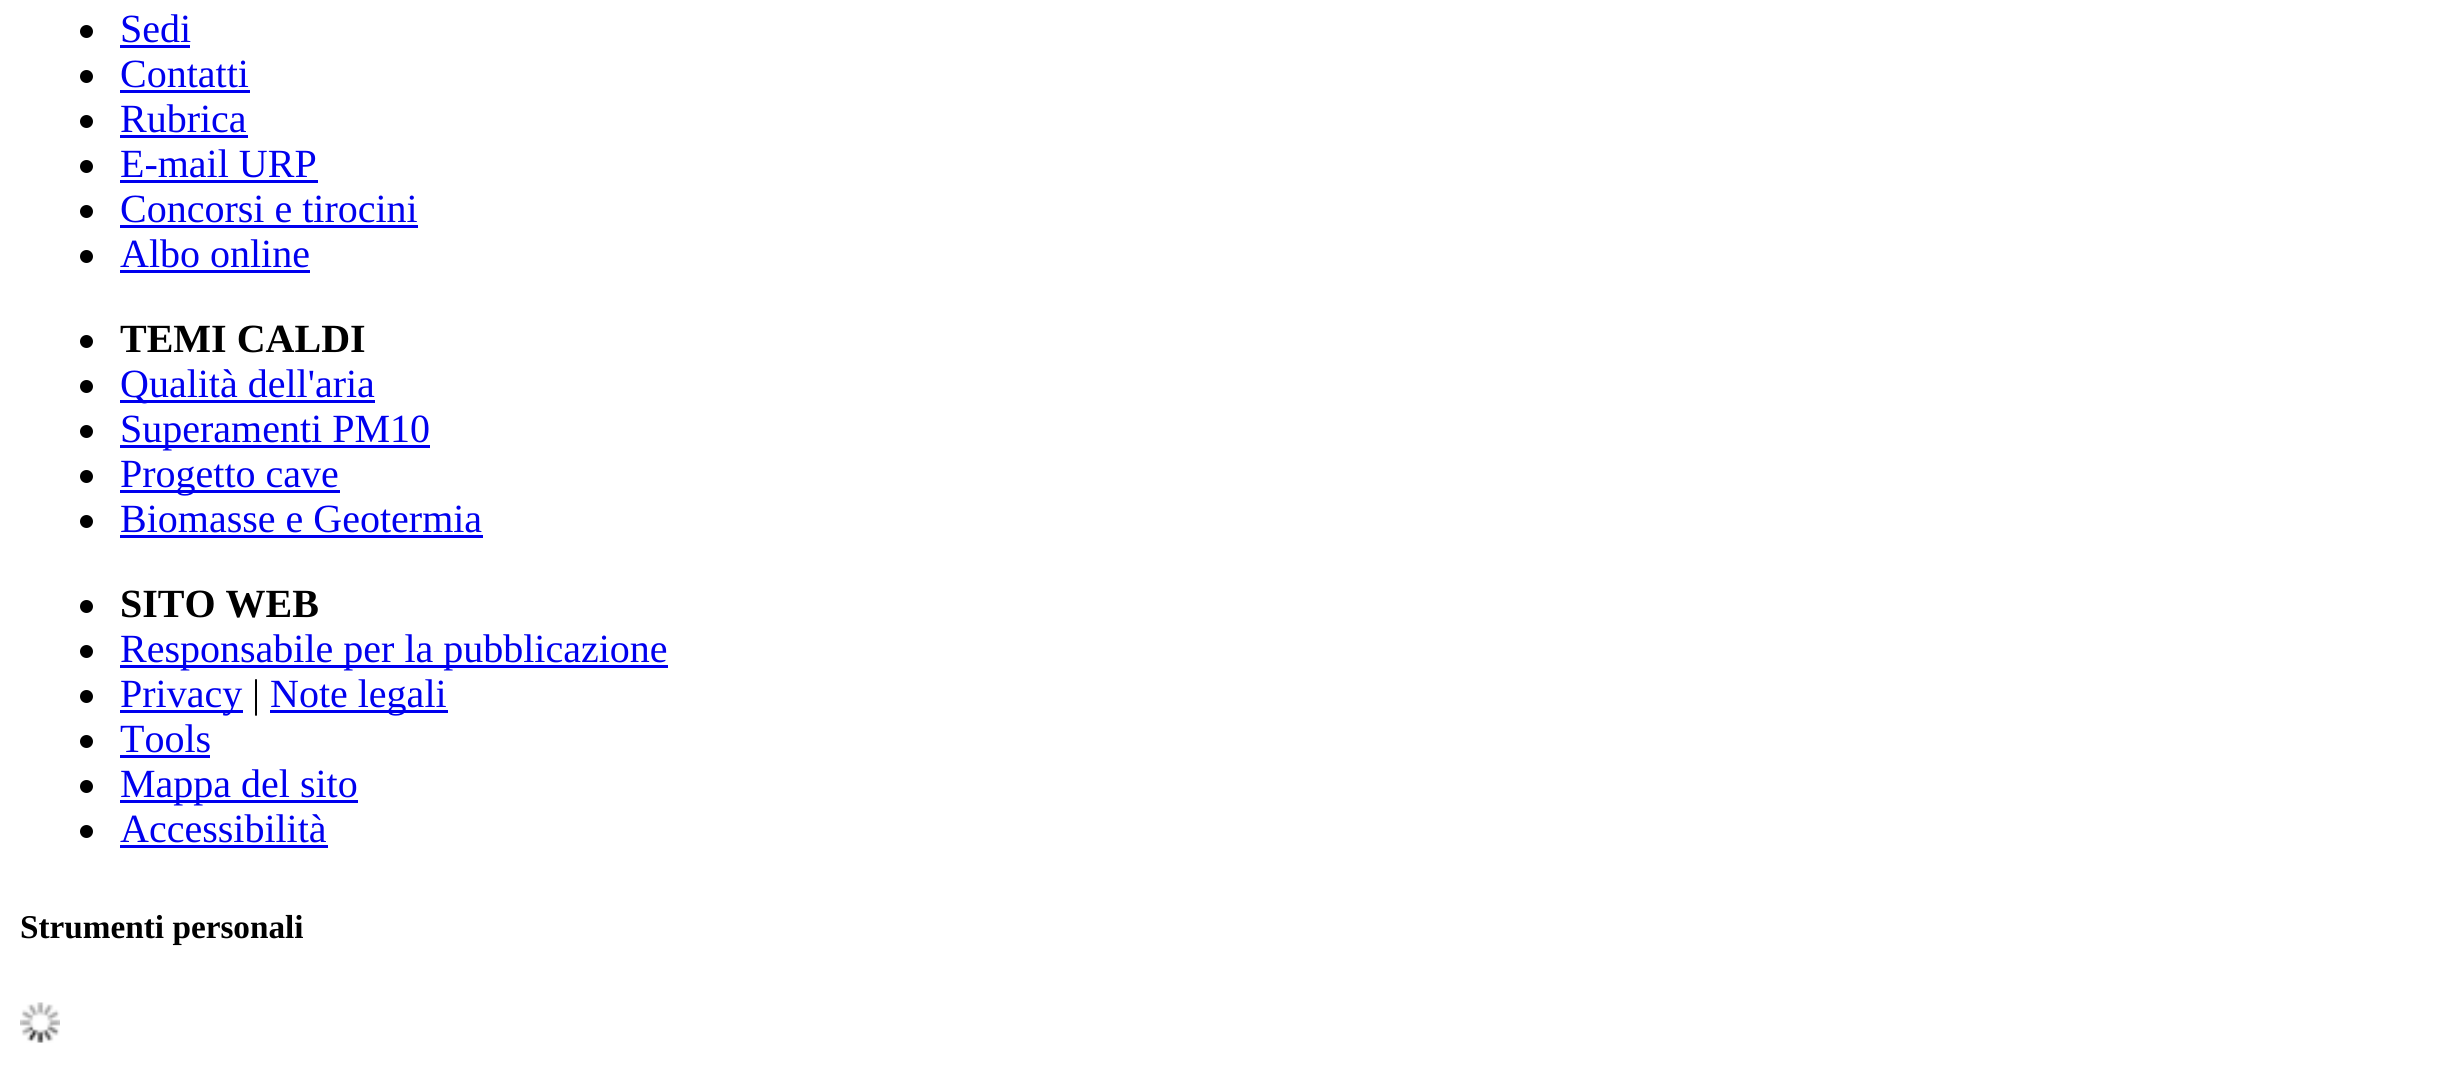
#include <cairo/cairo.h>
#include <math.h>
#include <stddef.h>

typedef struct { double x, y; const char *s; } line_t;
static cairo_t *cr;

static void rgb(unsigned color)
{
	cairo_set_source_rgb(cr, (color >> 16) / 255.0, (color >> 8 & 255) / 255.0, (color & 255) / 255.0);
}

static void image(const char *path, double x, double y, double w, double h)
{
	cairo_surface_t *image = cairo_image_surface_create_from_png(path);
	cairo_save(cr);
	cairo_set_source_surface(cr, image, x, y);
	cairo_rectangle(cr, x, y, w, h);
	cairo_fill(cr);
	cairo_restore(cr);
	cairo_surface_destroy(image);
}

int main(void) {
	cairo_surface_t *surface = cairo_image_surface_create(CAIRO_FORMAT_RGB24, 2459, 1072);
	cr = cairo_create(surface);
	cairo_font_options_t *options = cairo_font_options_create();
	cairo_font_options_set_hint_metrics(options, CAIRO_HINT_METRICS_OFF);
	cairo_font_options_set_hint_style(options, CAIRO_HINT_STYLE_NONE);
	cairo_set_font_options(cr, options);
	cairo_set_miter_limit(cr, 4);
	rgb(0xffffff);
	cairo_paint(cr);
	rgb(0x000000);
	cairo_arc(cr, 86.5, 31.5, 6.5, 0, 2 * M_PI);
	cairo_fill(cr);
	rgb(0x0000ee);
	cairo_rectangle(cr, 120, 45, 70, 3);
	cairo_fill(cr);
	rgb(0x000000);
	cairo_arc(cr, 86.5, 76.5, 6.5, 0, 2 * M_PI);
	cairo_fill(cr);
	rgb(0x0000ee);
	cairo_rectangle(cr, 120, 90, 130, 3);
	cairo_fill(cr);
	rgb(0x000000);
	cairo_arc(cr, 86.5, 121.5, 6.5, 0, 2 * M_PI);
	cairo_fill(cr);
	rgb(0x0000ee);
	cairo_rectangle(cr, 120, 135, 128, 3);
	cairo_fill(cr);
	rgb(0x000000);
	cairo_arc(cr, 86.5, 166.5, 6.5, 0, 2 * M_PI);
	cairo_fill(cr);
	rgb(0x0000ee);
	cairo_rectangle(cr, 120, 180, 198, 3);
	cairo_fill(cr);
	rgb(0x000000);
	cairo_arc(cr, 86.5, 211.5, 6.5, 0, 2 * M_PI);
	cairo_fill(cr);
	rgb(0x0000ee);
	cairo_rectangle(cr, 120, 225, 298, 3);
	cairo_fill(cr);
	rgb(0x000000);
	cairo_arc(cr, 86.5, 256.5, 6.5, 0, 2 * M_PI);
	cairo_fill(cr);
	rgb(0x0000ee);
	cairo_rectangle(cr, 120, 270, 190, 3);
	cairo_fill(cr);
	rgb(0x000000);
	cairo_arc(cr, 86.5, 341.5, 6.5, 0, 2 * M_PI);
	cairo_fill(cr);
	cairo_arc(cr, 86.5, 386.5, 6.5, 0, 2 * M_PI);
	cairo_fill(cr);
	rgb(0x0000ee);
	cairo_rectangle(cr, 120, 400, 255, 3);
	cairo_fill(cr);
	rgb(0x000000);
	cairo_arc(cr, 86.5, 431.5, 6.5, 0, 2 * M_PI);
	cairo_fill(cr);
	rgb(0x0000ee);
	cairo_rectangle(cr, 120, 445, 310, 3);
	cairo_fill(cr);
	rgb(0x000000);
	cairo_arc(cr, 86.5, 476.5, 6.5, 0, 2 * M_PI);
	cairo_fill(cr);
	rgb(0x0000ee);
	cairo_rectangle(cr, 120, 490, 220, 3);
	cairo_fill(cr);
	rgb(0x000000);
	cairo_arc(cr, 86.5, 521.5, 6.5, 0, 2 * M_PI);
	cairo_fill(cr);
	rgb(0x0000ee);
	cairo_rectangle(cr, 120, 535, 363, 3);
	cairo_fill(cr);
	rgb(0x000000);
	cairo_arc(cr, 86.5, 606.5, 6.5, 0, 2 * M_PI);
	cairo_fill(cr);
	cairo_arc(cr, 86.5, 651.5, 6.5, 0, 2 * M_PI);
	cairo_fill(cr);
	rgb(0x0000ee);
	cairo_rectangle(cr, 120, 665, 548, 3);
	cairo_fill(cr);
	rgb(0x000000);
	cairo_arc(cr, 86.5, 696.5, 6.5, 0, 2 * M_PI);
	cairo_fill(cr);
	rgb(0x0000ee);
	cairo_rectangle(cr, 120, 710, 123, 3);
	cairo_fill(cr);
	cairo_rectangle(cr, 270, 710, 178, 3);
	cairo_fill(cr);
	rgb(0x000000);
	cairo_arc(cr, 86.5, 741.5, 6.5, 0, 2 * M_PI);
	cairo_fill(cr);
	rgb(0x0000ee);
	cairo_rectangle(cr, 120, 755, 90, 3);
	cairo_fill(cr);
	rgb(0x000000);
	cairo_arc(cr, 86.5, 786.5, 6.5, 0, 2 * M_PI);
	cairo_fill(cr);
	rgb(0x0000ee);
	cairo_rectangle(cr, 120, 800, 238, 3);
	cairo_fill(cr);
	rgb(0x000000);
	cairo_arc(cr, 86.5, 831.5, 6.5, 0, 2 * M_PI);
	cairo_fill(cr);
	rgb(0x0000ee);
	cairo_rectangle(cr, 120, 845, 208, 3);
	cairo_fill(cr);
	image("img/1.png", 20, 1002, 40, 41);
	cairo_select_font_face(cr, "Liberation Serif", CAIRO_FONT_SLANT_NORMAL, CAIRO_FONT_WEIGHT_NORMAL);
	cairo_set_font_size(cr, 40);
	{
		static const line_t items[] = {
			{120, 42, "Sedi"},
			{120, 87, "Contatti"},
			{120, 132, "Rubrica"},
			{120, 177, "E-mail URP"},
			{120, 222, "Concorsi e tirocini"},
			{120, 267, "Albo online"},
		};
		for (size_t i = 0; i < sizeof items / sizeof *items; i++) {
			cairo_move_to(cr, items[i].x, items[i].y);
			cairo_show_text(cr, items[i].s);
		}
	}
	cairo_select_font_face(cr, "Liberation Serif", CAIRO_FONT_SLANT_NORMAL, CAIRO_FONT_WEIGHT_BOLD);
	rgb(0x000000);
	cairo_move_to(cr, 120, 352);
	cairo_show_text(cr, "TEMI CALDI");
	cairo_select_font_face(cr, "Liberation Serif", CAIRO_FONT_SLANT_NORMAL, CAIRO_FONT_WEIGHT_NORMAL);
	rgb(0x0000ee);
	{
		static const line_t items[] = {
			{120, 397, "Qualità dell'aria"},
			{120, 442, "Superamenti PM10"},
			{120, 487, "Progetto cave"},
			{120, 532, "Biomasse e Geotermia"},
		};
		for (size_t i = 0; i < sizeof items / sizeof *items; i++) {
			cairo_move_to(cr, items[i].x, items[i].y);
			cairo_show_text(cr, items[i].s);
		}
	}
	cairo_select_font_face(cr, "Liberation Serif", CAIRO_FONT_SLANT_NORMAL, CAIRO_FONT_WEIGHT_BOLD);
	rgb(0x000000);
	cairo_move_to(cr, 120, 617);
	cairo_show_text(cr, "SITO WEB");
	cairo_select_font_face(cr, "Liberation Serif", CAIRO_FONT_SLANT_NORMAL, CAIRO_FONT_WEIGHT_NORMAL);
	rgb(0x0000ee);
	cairo_move_to(cr, 120, 662);
	cairo_show_text(cr, "Responsabile per la pubblicazione");
	cairo_move_to(cr, 120, 707);
	cairo_show_text(cr, "Privacy");
	rgb(0x000000);
	cairo_move_to(cr, 252, 707);
	cairo_show_text(cr, "|");
	rgb(0x0000ee);
	{
		static const line_t items[] = {
			{270, 707, "Note legali"},
			{120, 752, "Tools"},
			{120, 797, "Mappa del sito"},
			{120, 842, "Accessibilità"},
		};
		for (size_t i = 0; i < sizeof items / sizeof *items; i++) {
			cairo_move_to(cr, items[i].x, items[i].y);
			cairo_show_text(cr, items[i].s);
		}
	}
	cairo_select_font_face(cr, "Liberation Serif", CAIRO_FONT_SLANT_NORMAL, CAIRO_FONT_WEIGHT_BOLD);
	cairo_set_font_size(cr, 33.25);
	rgb(0x000000);
	cairo_move_to(cr, 20, 938);
	cairo_show_text(cr, "Strumenti personali");
	cairo_surface_write_to_png(surface, "page.png");
	cairo_font_options_destroy(options);
	cairo_destroy(cr);
	cairo_surface_destroy(surface);
	return 0;
}
